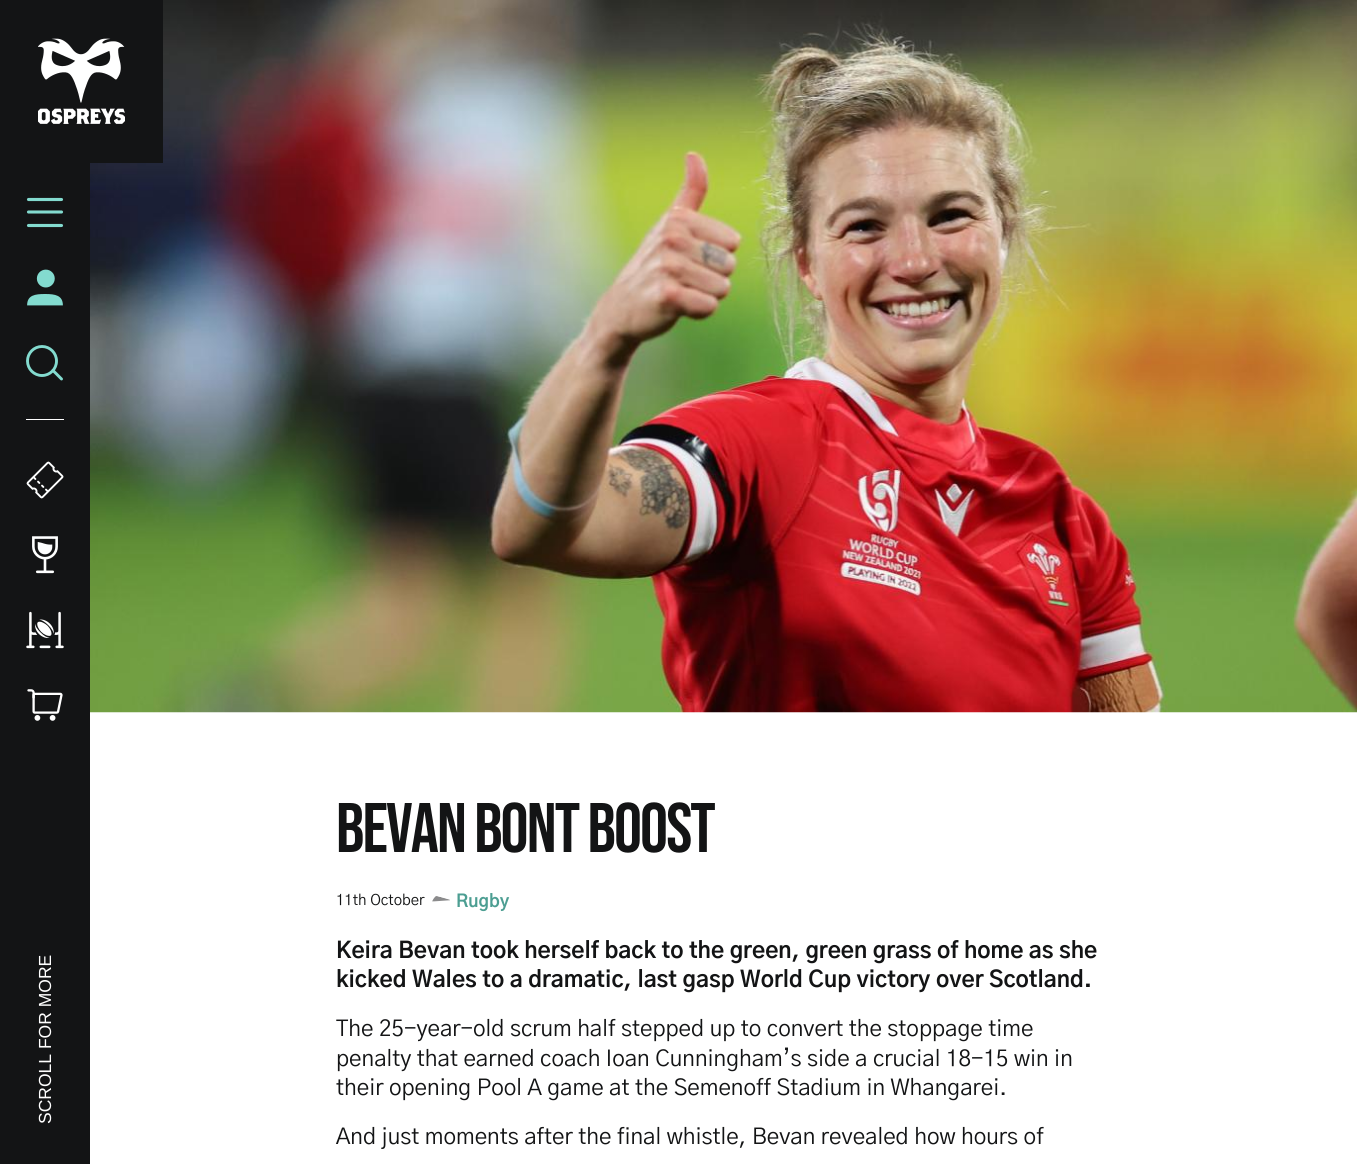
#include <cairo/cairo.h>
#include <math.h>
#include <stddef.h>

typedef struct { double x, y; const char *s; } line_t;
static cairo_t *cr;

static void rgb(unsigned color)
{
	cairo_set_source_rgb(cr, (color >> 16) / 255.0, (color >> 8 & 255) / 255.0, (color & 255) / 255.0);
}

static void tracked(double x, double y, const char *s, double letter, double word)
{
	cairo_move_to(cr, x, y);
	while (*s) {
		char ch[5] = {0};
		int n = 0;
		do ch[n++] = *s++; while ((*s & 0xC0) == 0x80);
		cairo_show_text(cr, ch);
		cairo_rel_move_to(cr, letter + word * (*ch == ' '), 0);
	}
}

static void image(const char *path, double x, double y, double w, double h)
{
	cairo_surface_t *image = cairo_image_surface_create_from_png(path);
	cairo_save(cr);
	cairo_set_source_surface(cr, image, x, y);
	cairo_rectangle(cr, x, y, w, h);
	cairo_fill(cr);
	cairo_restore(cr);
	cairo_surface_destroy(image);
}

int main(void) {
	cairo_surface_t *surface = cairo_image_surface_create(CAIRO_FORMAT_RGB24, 1357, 1164);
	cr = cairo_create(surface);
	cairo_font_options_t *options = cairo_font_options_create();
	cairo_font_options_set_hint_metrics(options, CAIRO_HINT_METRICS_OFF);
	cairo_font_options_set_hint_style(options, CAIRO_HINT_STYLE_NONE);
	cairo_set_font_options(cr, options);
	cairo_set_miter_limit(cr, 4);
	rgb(0xffffff);
	cairo_paint(cr);
	image("img/7.png", 90, 0, 1267, 713);
	rgb(0x131415);
	cairo_rectangle(cr, 0, 0, 163, 163);
	cairo_fill(cr);
	image("img/1.png", 38, 38, 87, 86);
	cairo_rectangle(cr, 0, 163, 90, 1001);
	cairo_fill(cr);
	cairo_new_path(cr);
	cairo_move_to(cr, 28.5, 199.5);
	cairo_line_to(cr, 61.5, 199.5);
	cairo_move_to(cr, 28.5, 212);
	cairo_line_to(cr, 61.5, 212);
	cairo_move_to(cr, 28.5, 225.5);
	cairo_line_to(cr, 61.5, 225.5);
	rgb(0x83dbcf);
	cairo_set_line_width(cr, 3.1);
	cairo_set_line_cap(cr, CAIRO_LINE_CAP_ROUND);
	cairo_stroke(cr);
	image("img/2.png", 27, 269, 36, 37);
	cairo_arc(cr, 42, 361, 14.5, 0, 2 * M_PI);
	cairo_set_line_width(cr, 2.9);
	cairo_set_line_cap(cr, CAIRO_LINE_CAP_BUTT);
	cairo_stroke(cr);
	cairo_new_path(cr);
	cairo_move_to(cr, 53, 370.5);
	cairo_line_to(cr, 61.5, 379);
	cairo_set_line_cap(cr, CAIRO_LINE_CAP_ROUND);
	cairo_stroke(cr);
	rgb(0xffffff);
	cairo_rectangle(cr, 26, 419, 38, 1);
	cairo_fill(cr);
	image("img/3.png", 26, 461, 38, 38);
	image("img/4.png", 32, 536, 26, 38);
	image("img/5.png", 26, 611, 38, 38);
	image("img/6.png", 27, 689, 36, 32);
	image("img/8.png", 432, 896, 18, 6);
	cairo_select_font_face(cr, "Liberation Sans", CAIRO_FONT_SLANT_NORMAL, CAIRO_FONT_WEIGHT_NORMAL);
	cairo_set_font_size(cr, 17.5);
	cairo_save(cr);
	cairo_translate(cr, 51, 1124);
	cairo_rotate(cr, -90 * M_PI / 180);
	cairo_move_to(cr, 0, 0);
	cairo_show_text(cr, "SCROLL FOR MORE");
	cairo_restore(cr);
	cairo_select_font_face(cr, "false", CAIRO_FONT_SLANT_NORMAL, CAIRO_FONT_WEIGHT_NORMAL);
	cairo_set_font_size(cr, 70);
	rgb(0x131415);
	tracked(336, 852, "BEVAN BONT BOOST", -1.9, 0);
	cairo_select_font_face(cr, "Gothic A1", CAIRO_FONT_SLANT_NORMAL, CAIRO_FONT_WEIGHT_NORMAL);
	cairo_set_font_size(cr, 15);
	cairo_move_to(cr, 336, 905);
	cairo_show_text(cr, "11th October");
	cairo_select_font_face(cr, "Gothic A1", CAIRO_FONT_SLANT_NORMAL, CAIRO_FONT_WEIGHT_BOLD);
	cairo_set_font_size(cr, 17.5);
	rgb(0x4c9e92);
	cairo_move_to(cr, 456, 907);
	cairo_show_text(cr, "Rugby");
	cairo_set_font_size(cr, 22.5);
	rgb(0x131415);
	cairo_move_to(cr, 336, 958);
	cairo_show_text(cr, "Keira Bevan took herself back to the green, green grass of home as she");
	cairo_move_to(cr, 336, 987);
	cairo_show_text(cr, "kicked Wales to a dramatic, last gasp World Cup victory over Scotland.");
	cairo_select_font_face(cr, "Gothic A1", CAIRO_FONT_SLANT_NORMAL, CAIRO_FONT_WEIGHT_NORMAL);
	{
		static const line_t items[] = {
			{336, 1036, "The 25-year-old scrum half stepped up to convert the stoppage time"},
			{336, 1066, "penalty that earned coach Ioan Cunningham’s side a crucial 18-15 win in"},
			{336, 1095, "their opening Pool A game at the Semenoff Stadium in Whangarei."},
			{336, 1144, "And just moments after the final whistle, Bevan revealed how hours of"},
		};
		for (size_t i = 0; i < sizeof items / sizeof *items; i++) {
			cairo_move_to(cr, items[i].x, items[i].y);
			cairo_show_text(cr, items[i].s);
		}
	}
	cairo_surface_write_to_png(surface, "page.png");
	cairo_font_options_destroy(options);
	cairo_destroy(cr);
	cairo_surface_destroy(surface);
	return 0;
}
